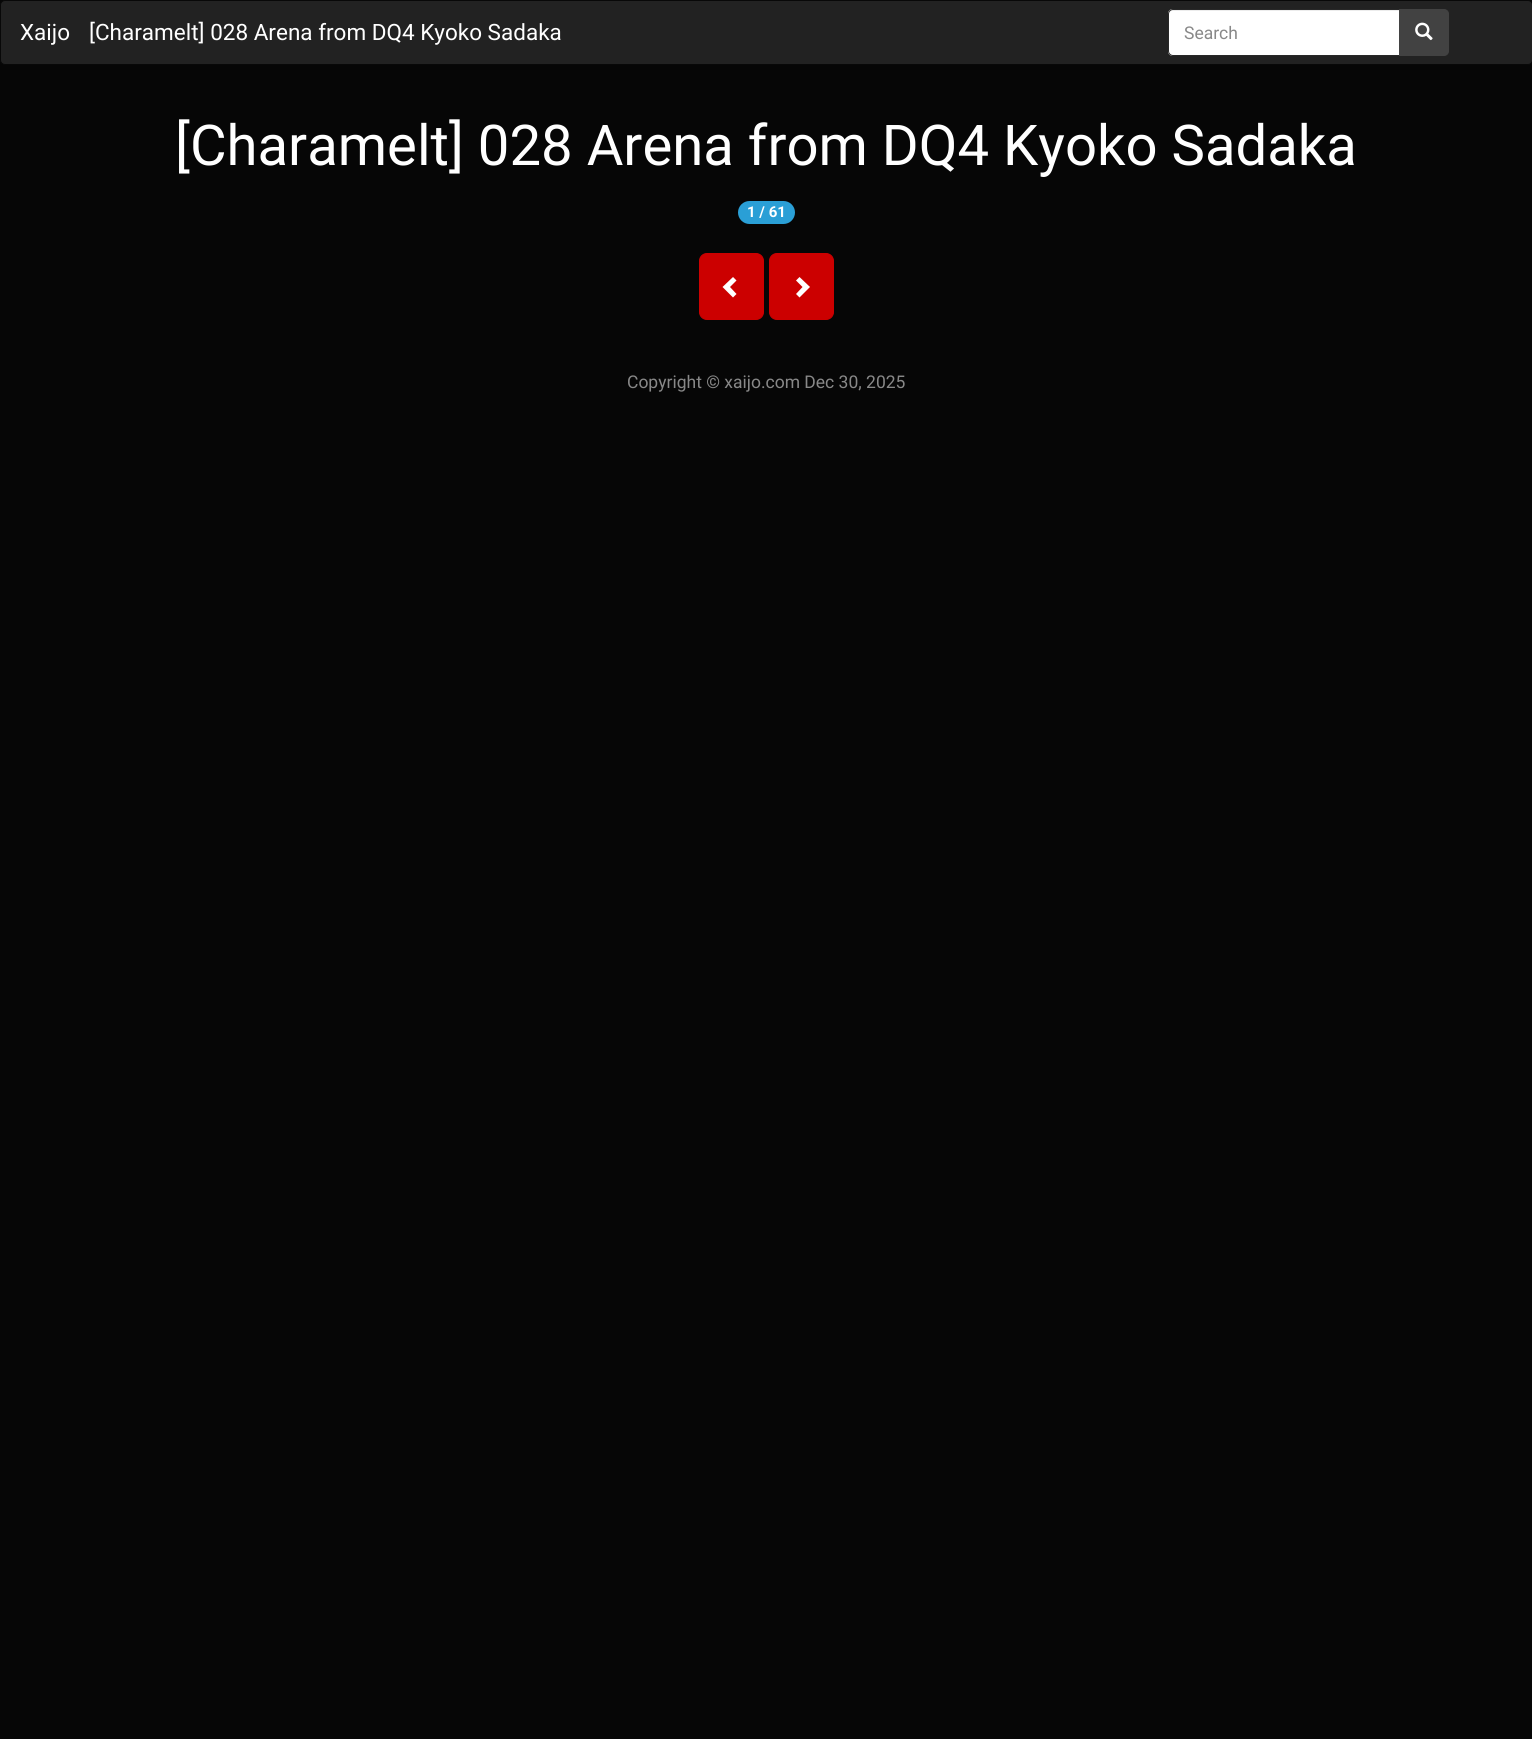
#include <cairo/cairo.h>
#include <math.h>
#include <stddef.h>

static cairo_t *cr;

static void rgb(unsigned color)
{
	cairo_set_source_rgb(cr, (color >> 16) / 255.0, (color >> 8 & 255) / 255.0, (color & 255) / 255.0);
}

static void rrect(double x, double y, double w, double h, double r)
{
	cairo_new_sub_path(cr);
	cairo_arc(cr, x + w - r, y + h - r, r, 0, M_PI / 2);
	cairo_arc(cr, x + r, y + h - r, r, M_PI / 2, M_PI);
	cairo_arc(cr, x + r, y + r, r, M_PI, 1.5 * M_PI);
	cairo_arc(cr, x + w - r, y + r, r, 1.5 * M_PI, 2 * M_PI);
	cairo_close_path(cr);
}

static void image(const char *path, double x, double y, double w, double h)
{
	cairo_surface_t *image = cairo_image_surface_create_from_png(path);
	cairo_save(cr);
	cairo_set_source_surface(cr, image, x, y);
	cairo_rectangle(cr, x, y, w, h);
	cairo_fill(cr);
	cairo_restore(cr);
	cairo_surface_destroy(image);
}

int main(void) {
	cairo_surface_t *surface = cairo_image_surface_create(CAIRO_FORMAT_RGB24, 1532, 1739);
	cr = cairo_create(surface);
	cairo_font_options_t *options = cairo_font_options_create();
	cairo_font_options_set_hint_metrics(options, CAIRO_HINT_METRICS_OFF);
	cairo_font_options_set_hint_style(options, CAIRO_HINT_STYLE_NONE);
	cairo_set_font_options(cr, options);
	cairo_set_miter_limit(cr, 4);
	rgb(0x060606);
	cairo_paint(cr);
	rgb(0x222222);
	rrect(0.5, 0.5, 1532, 64, 4.5);
	cairo_fill_preserve(cr);
	rgb(0x080808);
	cairo_set_line_width(cr, 1);
	cairo_stroke(cr);
	rgb(0xffffff);
	cairo_new_path(cr);
	cairo_move_to(cr, 1173, 9);
	cairo_line_to(cr, 1400, 9);
	cairo_line_to(cr, 1400, 56);
	cairo_line_to(cr, 1173, 56);
	cairo_curve_to(cr, 1170, 56, 1168, 54, 1168, 51);
	cairo_line_to(cr, 1168, 14);
	cairo_curve_to(cr, 1168, 11, 1170, 9, 1173, 9);
	cairo_close_path(cr);
	cairo_fill(cr);
	rgb(0xececec);
	cairo_new_path(cr);
	cairo_move_to(cr, 1172, 11);
	cairo_line_to(cr, 1399, 11);
	cairo_line_to(cr, 1399, 10);
	cairo_line_to(cr, 1173, 10);
	cairo_curve_to(cr, 1170, 10, 1169, 12, 1169, 15);
	cairo_curve_to(cr, 1169, 13, 1170, 11, 1172, 11);
	cairo_close_path(cr);
	cairo_fill(cr);
	cairo_new_path(cr);
	cairo_move_to(cr, 1173, 9.5);
	cairo_line_to(cr, 1399.5, 9.5);
	cairo_line_to(cr, 1399.5, 55.5);
	cairo_line_to(cr, 1173, 55.5);
	cairo_curve_to(cr, 1170.5, 55.5, 1168.5, 53.5, 1168.5, 51);
	cairo_line_to(cr, 1168.5, 14);
	cairo_curve_to(cr, 1168.5, 11.5, 1170.5, 9.5, 1173, 9.5);
	cairo_close_path(cr);
	rgb(0x282828);
	cairo_stroke(cr);
	rgb(0x424242);
	cairo_new_path(cr);
	cairo_move_to(cr, 1399.5, 9.5);
	cairo_line_to(cr, 1444, 9.5);
	cairo_curve_to(cr, 1446.5, 9.5, 1448.5, 11.5, 1448.5, 14);
	cairo_line_to(cr, 1448.5, 51);
	cairo_curve_to(cr, 1448.5, 53.5, 1446.5, 55.5, 1444, 55.5);
	cairo_line_to(cr, 1399.5, 55.5);
	cairo_close_path(cr);
	cairo_fill_preserve(cr);
	cairo_stroke(cr);
	image("img/1.png", 1415, 22, 18, 19);
	rgb(0x2a9fd6);
	rrect(738, 201, 57, 23, 11.5);
	cairo_fill(cr);
	rgb(0xcc0000);
	rrect(699.5, 253.5, 64, 66, 7.5);
	cairo_fill_preserve(cr);
	cairo_stroke(cr);
	rgb(0xffffff);
	cairo_new_path(cr);
	cairo_move_to(cr, 736.5, 280.5);
	cairo_line_to(cr, 730, 287);
	cairo_line_to(cr, 736.5, 294);
	cairo_line_to(cr, 733, 297.5);
	cairo_line_to(cr, 722.5, 287);
	cairo_line_to(cr, 733, 277);
	cairo_close_path(cr);
	cairo_fill(cr);
	rgb(0xcc0000);
	rrect(769.5, 253.5, 64, 66, 7.5);
	cairo_fill_preserve(cr);
	cairo_stroke(cr);
	rgb(0xffffff);
	cairo_new_path(cr);
	cairo_move_to(cr, 810, 287);
	cairo_line_to(cr, 799.5, 297.5);
	cairo_line_to(cr, 796, 294);
	cairo_line_to(cr, 802.5, 287);
	cairo_line_to(cr, 796, 280.5);
	cairo_line_to(cr, 799.5, 277);
	cairo_close_path(cr);
	cairo_fill(cr);
	cairo_select_font_face(cr, "Roboto", CAIRO_FONT_SLANT_NORMAL, CAIRO_FONT_WEIGHT_NORMAL);
	cairo_set_font_size(cr, 22.5);
	cairo_move_to(cr, 20, 40);
	cairo_show_text(cr, "Xaijo");
	cairo_move_to(cr, 89, 40);
	cairo_show_text(cr, "[Charamelt] 028 Arena from DQ4 Kyoko Sadaka");
	cairo_set_font_size(cr, 17.5);
	rgb(0x888888);
	cairo_move_to(cr, 1184, 39);
	cairo_show_text(cr, "Search");
	cairo_set_font_size(cr, 56.25);
	rgb(0xffffff);
	cairo_move_to(cr, 175, 165);
	cairo_show_text(cr, "[Charamelt] 028 Arena from DQ4 Kyoko Sadaka");
	cairo_select_font_face(cr, "Roboto", CAIRO_FONT_SLANT_NORMAL, CAIRO_FONT_WEIGHT_BOLD);
	cairo_set_font_size(cr, 15);
	cairo_move_to(cr, 747, 217);
	cairo_show_text(cr, "1 / 61");
	cairo_select_font_face(cr, "Roboto", CAIRO_FONT_SLANT_NORMAL, CAIRO_FONT_WEIGHT_NORMAL);
	cairo_set_font_size(cr, 17.5);
	rgb(0x888888);
	cairo_move_to(cr, 627, 388);
	cairo_show_text(cr, "Copyright © xaijo.com Dec 30, 2025");
	cairo_surface_write_to_png(surface, "page.png");
	cairo_font_options_destroy(options);
	cairo_destroy(cr);
	cairo_surface_destroy(surface);
	return 0;
}
